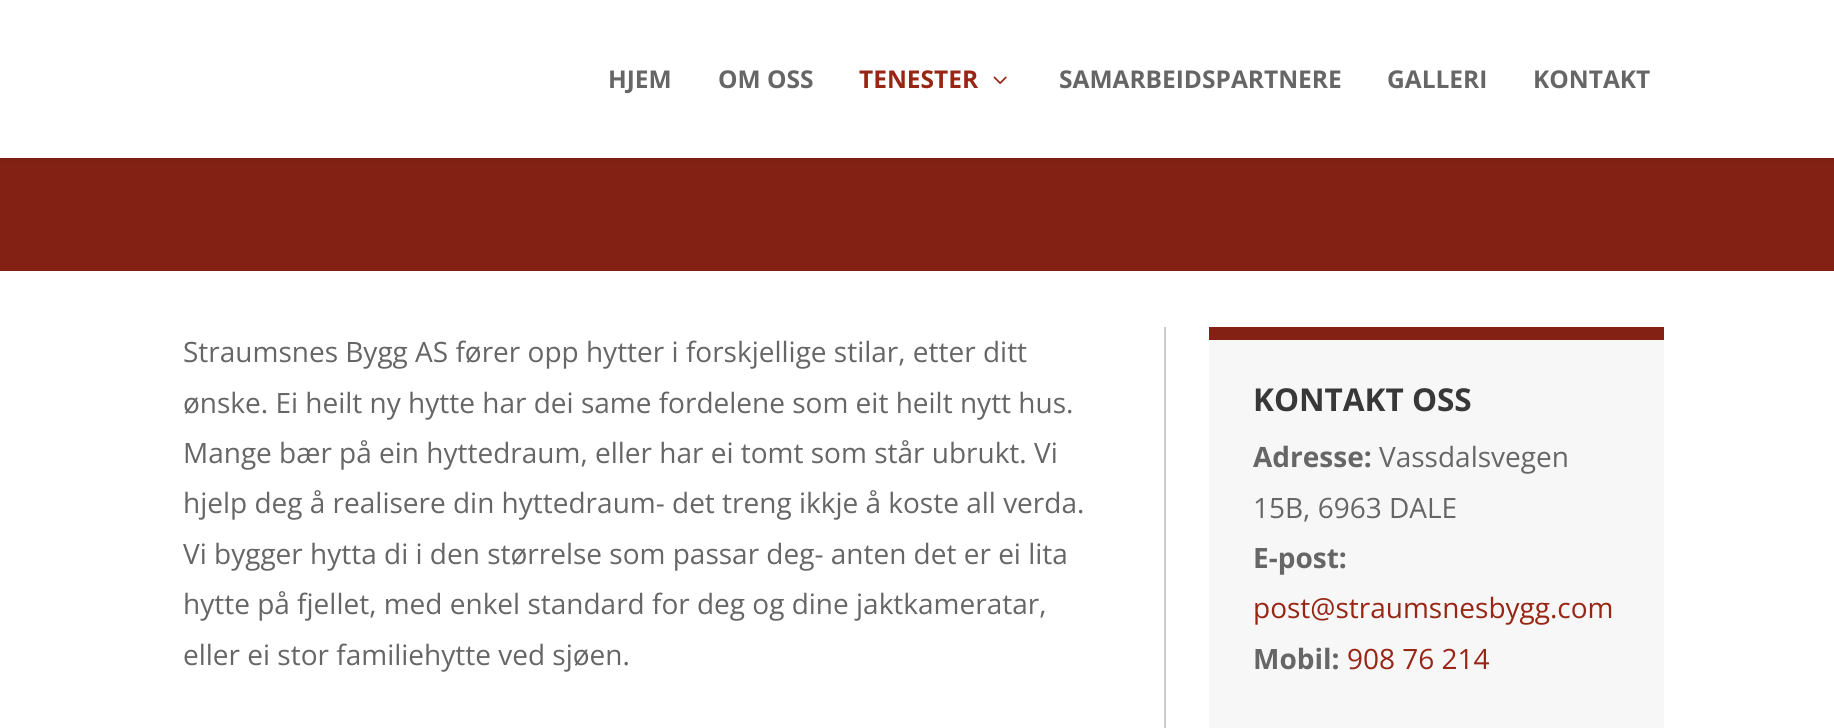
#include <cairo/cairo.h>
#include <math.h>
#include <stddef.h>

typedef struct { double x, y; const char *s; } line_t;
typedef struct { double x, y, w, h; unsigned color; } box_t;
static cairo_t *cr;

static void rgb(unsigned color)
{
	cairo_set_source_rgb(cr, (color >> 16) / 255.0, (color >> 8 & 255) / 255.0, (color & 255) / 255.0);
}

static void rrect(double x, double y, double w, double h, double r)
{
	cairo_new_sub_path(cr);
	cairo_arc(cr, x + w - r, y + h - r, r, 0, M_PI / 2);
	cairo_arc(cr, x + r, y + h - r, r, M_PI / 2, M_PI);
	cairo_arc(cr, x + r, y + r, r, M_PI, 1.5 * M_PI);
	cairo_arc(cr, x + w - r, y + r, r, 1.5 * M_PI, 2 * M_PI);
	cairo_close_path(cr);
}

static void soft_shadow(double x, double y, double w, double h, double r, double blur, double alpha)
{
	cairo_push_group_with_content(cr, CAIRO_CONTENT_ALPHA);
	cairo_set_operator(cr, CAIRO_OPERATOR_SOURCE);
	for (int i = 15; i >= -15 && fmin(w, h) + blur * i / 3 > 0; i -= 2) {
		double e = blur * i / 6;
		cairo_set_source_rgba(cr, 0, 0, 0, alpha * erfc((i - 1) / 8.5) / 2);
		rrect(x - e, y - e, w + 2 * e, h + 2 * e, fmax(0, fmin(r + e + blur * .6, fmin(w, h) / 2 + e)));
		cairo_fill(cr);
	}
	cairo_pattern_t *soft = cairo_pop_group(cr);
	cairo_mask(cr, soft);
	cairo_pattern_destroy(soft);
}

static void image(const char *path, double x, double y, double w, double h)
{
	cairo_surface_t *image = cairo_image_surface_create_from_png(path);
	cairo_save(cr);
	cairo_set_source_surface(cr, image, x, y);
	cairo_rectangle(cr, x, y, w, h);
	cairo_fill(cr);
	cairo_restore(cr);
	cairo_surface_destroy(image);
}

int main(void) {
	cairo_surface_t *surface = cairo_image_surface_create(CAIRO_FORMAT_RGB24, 1834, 728);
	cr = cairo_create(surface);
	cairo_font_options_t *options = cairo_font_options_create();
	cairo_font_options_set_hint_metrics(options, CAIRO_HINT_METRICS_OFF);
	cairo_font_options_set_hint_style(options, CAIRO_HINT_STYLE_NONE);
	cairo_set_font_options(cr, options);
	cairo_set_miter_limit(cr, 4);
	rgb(0xffffff);
	cairo_paint(cr);
	rgb(0x832214);
	cairo_rectangle(cr, 0, 158, 1834, 113);
	cairo_fill(cr);
	rgb(0x000000);
	soft_shadow(0, 0, 1834, 158, 0, 6, 0.1);
	rgb(0xffffff);
	cairo_rectangle(cr, 0, 0, 1834, 158);
	cairo_fill(cr);
	image("img/1.png", 993, 76, 14, 8);
	{
		static const box_t items[] = {
			{1164, 327, 2, 401, 0xcccccc},
			{1209, 340, 455, 388, 0xf7f7f7},
			{1209, 327, 455, 13, 0x832214},
		};
		for (size_t i = 0; i < sizeof items / sizeof *items; i++) {
			rgb(items[i].color);
			cairo_rectangle(cr, items[i].x, items[i].y, items[i].w, items[i].h);
			cairo_fill(cr);
		}
	}
	cairo_select_font_face(cr, "Open Sans", CAIRO_FONT_SLANT_NORMAL, CAIRO_FONT_WEIGHT_BOLD);
	cairo_set_font_size(cr, 24.5);
	rgb(0x666666);
	cairo_move_to(cr, 608, 88);
	cairo_show_text(cr, "HJEM");
	cairo_move_to(cr, 718, 88);
	cairo_show_text(cr, "OM OSS");
	rgb(0x982615);
	cairo_move_to(cr, 859, 88);
	cairo_show_text(cr, "TENESTER");
	rgb(0x666666);
	{
		static const line_t items[] = {
			{1059, 88, "SAMARBEIDSPARTNERE"},
			{1387, 88, "GALLERI"},
			{1533, 88, "KONTAKT"},
		};
		for (size_t i = 0; i < sizeof items / sizeof *items; i++) {
			cairo_move_to(cr, items[i].x, items[i].y);
			cairo_show_text(cr, items[i].s);
		}
	}
	cairo_select_font_face(cr, "Open Sans", CAIRO_FONT_SLANT_NORMAL, CAIRO_FONT_WEIGHT_NORMAL);
	cairo_set_font_size(cr, 28);
	{
		static const line_t items[] = {
			{183, 362, "Straumsnes Bygg AS fører opp hytter i forskjellige stilar, etter ditt"},
			{183, 413, "ønske. Ei heilt ny hytte har dei same fordelene som eit heilt nytt hus."},
			{183, 463, "Mange bær på ein hyttedraum, eller har ei tomt som står ubrukt. Vi"},
			{183, 513, "hjelp deg å realisere din hyttedraum- det treng ikkje å koste all verda."},
			{183, 564, "Vi bygger hytta di i den størrelse som passar deg- anten det er ei lita"},
			{183, 614, "hytte på fjellet, med enkel standard for deg og dine jaktkameratar,"},
			{183, 665, "eller ei stor familiehytte ved sjøen."},
		};
		for (size_t i = 0; i < sizeof items / sizeof *items; i++) {
			cairo_move_to(cr, items[i].x, items[i].y);
			cairo_show_text(cr, items[i].s);
		}
	}
	cairo_select_font_face(cr, "Open Sans", CAIRO_FONT_SLANT_NORMAL, CAIRO_FONT_WEIGHT_BOLD);
	cairo_set_font_size(cr, 31.5);
	rgb(0x383838);
	cairo_move_to(cr, 1253, 411);
	cairo_show_text(cr, "KONTAKT OSS");
	cairo_set_font_size(cr, 28);
	rgb(0x666666);
	cairo_move_to(cr, 1253, 467);
	cairo_show_text(cr, "Adresse:");
	cairo_select_font_face(cr, "Open Sans", CAIRO_FONT_SLANT_NORMAL, CAIRO_FONT_WEIGHT_NORMAL);
	cairo_move_to(cr, 1379, 467);
	cairo_show_text(cr, "Vassdalsvegen");
	cairo_move_to(cr, 1253, 518);
	cairo_show_text(cr, "15B, 6963 DALE");
	cairo_select_font_face(cr, "Open Sans", CAIRO_FONT_SLANT_NORMAL, CAIRO_FONT_WEIGHT_BOLD);
	cairo_move_to(cr, 1253, 568);
	cairo_show_text(cr, "E-post:");
	cairo_select_font_face(cr, "Open Sans", CAIRO_FONT_SLANT_NORMAL, CAIRO_FONT_WEIGHT_NORMAL);
	rgb(0x982615);
	cairo_move_to(cr, 1253, 618);
	cairo_show_text(cr, "post@straumsnesbygg.com");
	cairo_select_font_face(cr, "Open Sans", CAIRO_FONT_SLANT_NORMAL, CAIRO_FONT_WEIGHT_BOLD);
	rgb(0x666666);
	cairo_move_to(cr, 1253, 669);
	cairo_show_text(cr, "Mobil:");
	cairo_select_font_face(cr, "Open Sans", CAIRO_FONT_SLANT_NORMAL, CAIRO_FONT_WEIGHT_NORMAL);
	rgb(0x982615);
	cairo_move_to(cr, 1347, 669);
	cairo_show_text(cr, "908 76 214");
	cairo_surface_write_to_png(surface, "page.png");
	cairo_font_options_destroy(options);
	cairo_destroy(cr);
	cairo_surface_destroy(surface);
	return 0;
}
